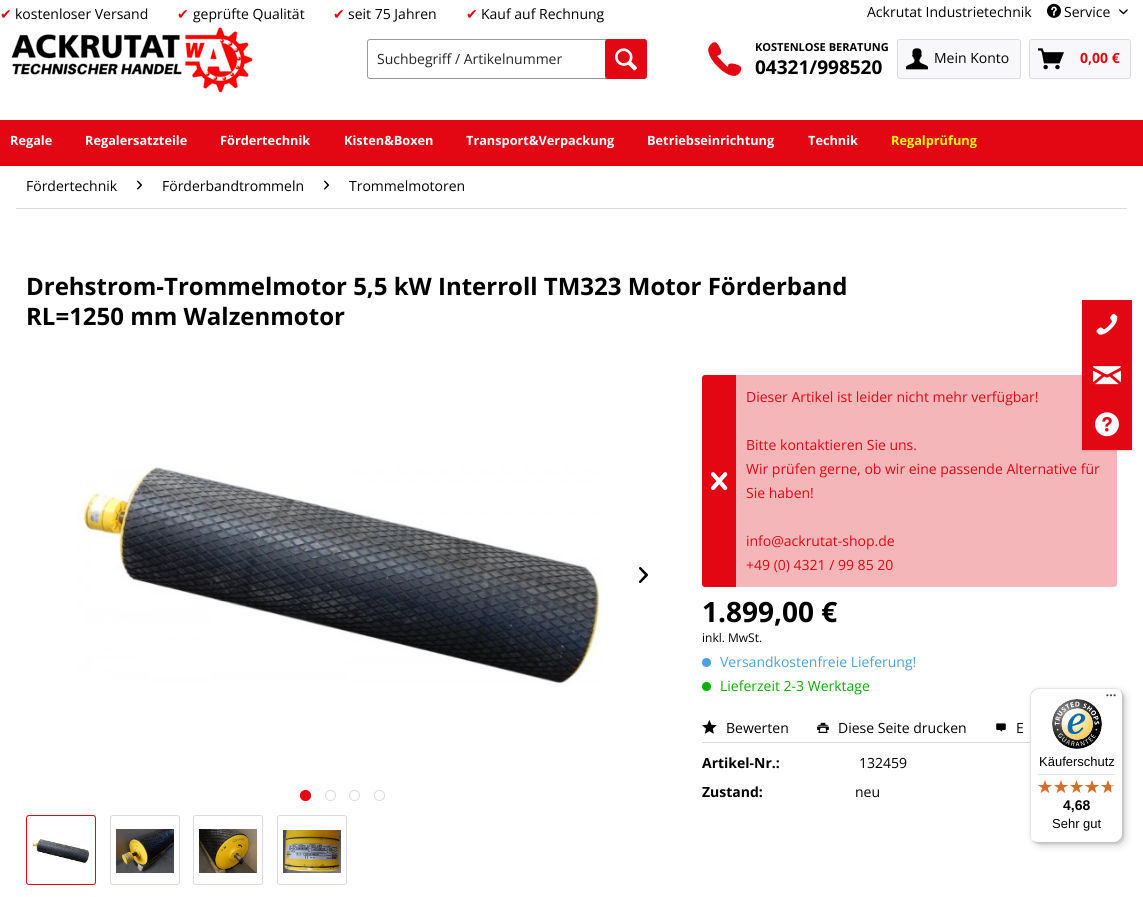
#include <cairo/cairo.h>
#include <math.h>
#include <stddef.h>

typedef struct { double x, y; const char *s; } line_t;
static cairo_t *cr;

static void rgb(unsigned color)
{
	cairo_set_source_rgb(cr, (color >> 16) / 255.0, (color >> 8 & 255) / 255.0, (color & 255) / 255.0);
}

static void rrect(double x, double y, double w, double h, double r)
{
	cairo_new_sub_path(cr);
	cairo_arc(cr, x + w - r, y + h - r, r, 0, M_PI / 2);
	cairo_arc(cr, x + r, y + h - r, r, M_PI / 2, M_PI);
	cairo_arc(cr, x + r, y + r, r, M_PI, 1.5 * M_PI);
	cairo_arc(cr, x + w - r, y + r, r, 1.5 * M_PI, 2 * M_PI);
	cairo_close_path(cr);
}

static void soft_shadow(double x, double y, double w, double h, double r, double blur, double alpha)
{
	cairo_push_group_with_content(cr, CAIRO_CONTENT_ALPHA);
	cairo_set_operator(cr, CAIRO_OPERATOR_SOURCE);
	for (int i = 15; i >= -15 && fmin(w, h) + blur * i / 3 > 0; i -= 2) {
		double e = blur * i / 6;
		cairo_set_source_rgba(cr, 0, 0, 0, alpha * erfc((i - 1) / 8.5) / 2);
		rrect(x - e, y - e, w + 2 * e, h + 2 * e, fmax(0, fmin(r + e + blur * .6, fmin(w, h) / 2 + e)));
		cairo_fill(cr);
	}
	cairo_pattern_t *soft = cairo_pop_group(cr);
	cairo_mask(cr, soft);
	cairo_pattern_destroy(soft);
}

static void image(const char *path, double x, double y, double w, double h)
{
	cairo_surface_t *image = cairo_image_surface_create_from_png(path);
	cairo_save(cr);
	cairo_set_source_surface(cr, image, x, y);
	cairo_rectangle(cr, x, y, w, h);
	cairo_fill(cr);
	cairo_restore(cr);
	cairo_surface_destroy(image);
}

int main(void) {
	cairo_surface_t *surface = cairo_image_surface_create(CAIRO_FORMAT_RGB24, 1143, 897);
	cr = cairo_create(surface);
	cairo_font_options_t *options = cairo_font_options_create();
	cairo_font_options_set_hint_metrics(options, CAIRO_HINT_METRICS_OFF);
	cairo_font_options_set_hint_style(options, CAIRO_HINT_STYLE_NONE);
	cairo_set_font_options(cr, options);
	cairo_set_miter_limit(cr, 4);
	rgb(0xffffff);
	cairo_paint(cr);
	image("img/1.png", 1047, 3, 14, 15);
	image("img/2.png", 1119, 9, 9, 6);
	image("img/3.png", 11, 27, 242, 66);
	rrect(367.5, 39.5, 279, 39, 2.5);
	rgb(0x999999);
	cairo_set_line_width(cr, 1);
	cairo_stroke(cr);
	rgb(0xe30613);
	rrect(605, 39, 42, 40, 3);
	cairo_fill(cr);
	image("img/4.png", 615, 48, 22, 23);
	image("img/5.png", 708, 41, 34, 35);
	rgb(0xf8f8fa);
	rrect(897.5, 39.5, 123, 39, 2.5);
	cairo_fill_preserve(cr);
	rgb(0xdadae5);
	cairo_stroke(cr);
	image("img/6.png", 906, 48, 22, 22);
	rgb(0xf8f8fa);
	rrect(1029.5, 39.5, 101, 39, 2.5);
	cairo_fill_preserve(cr);
	rgb(0xdadae5);
	cairo_stroke(cr);
	image("img/7.png", 1038, 48, 26, 22);
	rgb(0xe30613);
	cairo_rectangle(cr, 0, 120, 1143, 46);
	cairo_fill(cr);
	rgb(0xdadae5);
	cairo_rectangle(cr, 16, 208, 1111, 1);
	cairo_fill(cr);
	image("img/8.png", 137, 180, 5, 10);
	image("img/8.png", 324, 180, 5, 10);
	image("img/9.png", 77, 467, 526, 218);
	image("img/10.png", 639, 567, 9, 16);
	rgb(0xe30613);
	cairo_arc(cr, 305.5, 795.5, 5, 0, 2 * M_PI);
	cairo_fill_preserve(cr);
	cairo_stroke(cr);
	cairo_arc(cr, 330.5, 795.5, 5, 0, 2 * M_PI);
	rgb(0xdadae5);
	cairo_stroke(cr);
	cairo_arc(cr, 354.5, 795.5, 5, 0, 2 * M_PI);
	cairo_stroke(cr);
	cairo_arc(cr, 379.5, 795.5, 5, 0, 2 * M_PI);
	cairo_stroke(cr);
	rrect(26.5, 815.5, 69, 69, 2.5);
	rgb(0xe30613);
	cairo_stroke(cr);
	image("img/11.png", 32, 839, 58, 24);
	rrect(110.5, 815.5, 69, 69, 2.5);
	rgb(0xdadae5);
	cairo_stroke(cr);
	image("img/12.png", 116, 829, 58, 44);
	rrect(193.5, 815.5, 69, 69, 2.5);
	cairo_stroke(cr);
	image("img/13.png", 199, 829, 58, 44);
	rrect(277.5, 815.5, 69, 69, 2.5);
	cairo_stroke(cr);
	image("img/14.png", 283, 830, 58, 43);
	rgb(0xf5b6ba);
	rrect(702, 375, 415, 212, 3);
	cairo_fill(cr);
	rgb(0xe30613);
	cairo_new_path(cr);
	cairo_move_to(cr, 705, 375);
	cairo_line_to(cr, 736, 375);
	cairo_line_to(cr, 736, 587);
	cairo_line_to(cr, 705, 587);
	cairo_curve_to(cr, 703.5, 587, 702, 585.5, 702, 584);
	cairo_line_to(cr, 702, 378);
	cairo_curve_to(cr, 702, 376.5, 703.5, 375, 705, 375);
	cairo_close_path(cr);
	cairo_fill(cr);
	image("img/15.png", 711, 472, 17, 19);
	rgb(0x4aa3df);
	cairo_arc(cr, 706.5, 662.5, 4.5, 0, 2 * M_PI);
	cairo_fill(cr);
	rgb(0x08b000);
	cairo_arc(cr, 706.5, 686.5, 4.5, 0, 2 * M_PI);
	cairo_fill(cr);
	rgb(0xdadae5);
	cairo_rectangle(cr, 702, 742, 328, 1);
	cairo_fill(cr);
	image("img/16.png", 702, 720, 15, 14);
	image("img/17.png", 817, 722, 12, 11);
	image("img/18.png", 996, 723, 10, 9);
	rgb(0x000000);
	soft_shadow(1082, 301, 50, 150, 0, 1, 0.15);
	rgb(0xe30613);
	cairo_rectangle(cr, 1082, 300, 50, 150);
	cairo_fill(cr);
	image("img/19.png", 1096, 313, 22, 22);
	image("img/20.png", 1093, 366, 28, 19);
	image("img/21.png", 1095, 412, 24, 25);
	rgb(0x000000);
	soft_shadow(1033, 691, 93, 155, 8, 4, 0.15);
	soft_shadow(1031, 689, 93, 155, 8, 1, 0.15);
	rgb(0xffffff);
	rrect(1030, 688, 93, 155, 8);
	cairo_fill(cr);
	rgb(0xe5e5e5);
	cairo_new_path(cr);
	cairo_move_to(cr, 1039, 689);
	cairo_line_to(cr, 1116, 689);
	cairo_curve_to(cr, 1118, 689, 1120, 690, 1122, 692);
	cairo_curve_to(cr, 1120, 690, 1118, 688, 1115, 688);
	cairo_line_to(cr, 1038, 688);
	cairo_curve_to(cr, 1034, 688, 1030, 692, 1030, 696);
	cairo_line_to(cr, 1030, 835);
	cairo_curve_to(cr, 1030, 838, 1032, 840, 1034, 842);
	cairo_curve_to(cr, 1032, 840, 1031, 838, 1031, 836);
	cairo_line_to(cr, 1031, 697);
	cairo_curve_to(cr, 1031, 693, 1035, 689, 1039, 689);
	cairo_close_path(cr);
	cairo_fill(cr);
	rgb(0xcccccc);
	cairo_new_path(cr);
	cairo_move_to(cr, 1031, 839);
	cairo_curve_to(cr, 1033, 841, 1035, 843, 1038, 843);
	cairo_line_to(cr, 1115, 843);
	cairo_curve_to(cr, 1119, 843, 1123, 839, 1123, 835);
	cairo_line_to(cr, 1123, 696);
	cairo_curve_to(cr, 1123, 693, 1121, 691, 1119, 689);
	cairo_curve_to(cr, 1121, 691, 1122, 693, 1122, 695);
	cairo_line_to(cr, 1122, 834);
	cairo_curve_to(cr, 1122, 838, 1118, 842, 1114, 842);
	cairo_line_to(cr, 1037, 842);
	cairo_curve_to(cr, 1035, 842, 1033, 841, 1031, 839);
	cairo_close_path(cr);
	cairo_fill(cr);
	cairo_set_source_rgba(cr, 0.196, 0.196, 0.196, 0.2);
	cairo_new_path(cr);
	cairo_move_to(cr, 1032, 840);
	cairo_curve_to(cr, 1033, 842, 1036, 843, 1038, 843);
	cairo_line_to(cr, 1115, 843);
	cairo_curve_to(cr, 1119, 843, 1123, 839, 1123, 835);
	cairo_line_to(cr, 1123, 696);
	cairo_curve_to(cr, 1123, 694, 1122, 691, 1120, 690);
	cairo_curve_to(cr, 1121, 691, 1122, 693, 1122, 695);
	cairo_line_to(cr, 1122, 834);
	cairo_curve_to(cr, 1122, 839, 1119, 842, 1114, 842);
	cairo_line_to(cr, 1037, 842);
	cairo_curve_to(cr, 1035, 842, 1033, 841, 1032, 840);
	cairo_close_path(cr);
	cairo_fill(cr);
	cairo_set_source_rgba(cr, 1, 1, 1, 0.3);
	cairo_new_path(cr);
	cairo_move_to(cr, 1122, 696);
	cairo_curve_to(cr, 1122, 691, 1119, 688, 1114, 688);
	cairo_line_to(cr, 1115, 688);
	cairo_curve_to(cr, 1119, 688, 1123, 692, 1123, 696);
	cairo_line_to(cr, 1123, 835);
	cairo_curve_to(cr, 1123, 839, 1119, 843, 1115, 843);
	cairo_line_to(cr, 1038, 843);
	cairo_curve_to(cr, 1034, 843, 1030, 839, 1030, 835);
	cairo_line_to(cr, 1030, 834);
	cairo_curve_to(cr, 1030, 839, 1033, 842, 1038, 842);
	cairo_line_to(cr, 1114, 842);
	cairo_curve_to(cr, 1119, 842, 1122, 839, 1122, 834);
	cairo_close_path(cr);
	cairo_fill(cr);
	image("img/22.png", 1106, 694, 10, 3);
	image("img/23.png", 1052, 699, 50, 50);
	rgb(0xe5e5e5);
	cairo_rectangle(cr, 1038, 774, 77, 1);
	cairo_fill(cr);
	image("img/24.png", 1038, 780, 14, 13);
	image("img/24.png", 1054, 780, 14, 13);
	image("img/25.png", 1070, 780, 13, 13);
	image("img/24.png", 1085, 780, 14, 13);
	image("img/24.png", 1101, 780, 14, 13);
	image("img/26.png", 1038, 780, 14, 13);
	image("img/26.png", 1054, 780, 14, 13);
	image("img/27.png", 1070, 780, 13, 13);
	image("img/26.png", 1085, 780, 14, 13);
	image("img/28.png", 1101, 780, 10, 13);
	cairo_select_font_face(cr, "DejaVu Sans", CAIRO_FONT_SLANT_NORMAL, CAIRO_FONT_WEIGHT_NORMAL);
	cairo_set_font_size(cr, 14);
	rgb(0xe30613);
	cairo_move_to(cr, 0, 19);
	cairo_show_text(cr, "✔");
	cairo_select_font_face(cr, "Open Sans", CAIRO_FONT_SLANT_NORMAL, CAIRO_FONT_WEIGHT_NORMAL);
	rgb(0x000000);
	cairo_move_to(cr, 15, 19);
	cairo_show_text(cr, "kostenloser Versand");
	cairo_select_font_face(cr, "DejaVu Sans", CAIRO_FONT_SLANT_NORMAL, CAIRO_FONT_WEIGHT_NORMAL);
	rgb(0xe30613);
	cairo_move_to(cr, 177, 19);
	cairo_show_text(cr, "✔");
	cairo_select_font_face(cr, "Open Sans", CAIRO_FONT_SLANT_NORMAL, CAIRO_FONT_WEIGHT_NORMAL);
	rgb(0x000000);
	cairo_move_to(cr, 193, 19);
	cairo_show_text(cr, "geprüfte Qualität");
	cairo_select_font_face(cr, "DejaVu Sans", CAIRO_FONT_SLANT_NORMAL, CAIRO_FONT_WEIGHT_NORMAL);
	rgb(0xe30613);
	cairo_move_to(cr, 333, 19);
	cairo_show_text(cr, "✔");
	cairo_select_font_face(cr, "Open Sans", CAIRO_FONT_SLANT_NORMAL, CAIRO_FONT_WEIGHT_NORMAL);
	rgb(0x000000);
	cairo_move_to(cr, 348, 19);
	cairo_show_text(cr, "seit 75 Jahren");
	cairo_select_font_face(cr, "DejaVu Sans", CAIRO_FONT_SLANT_NORMAL, CAIRO_FONT_WEIGHT_NORMAL);
	rgb(0xe30613);
	cairo_move_to(cr, 466, 19);
	cairo_show_text(cr, "✔");
	cairo_select_font_face(cr, "Open Sans", CAIRO_FONT_SLANT_NORMAL, CAIRO_FONT_WEIGHT_NORMAL);
	rgb(0x000000);
	{
		static const line_t items[] = {
			{481, 19, "Kauf auf Rechnung"},
			{867, 17, "Ackrutat Industrietechnik"},
			{1064, 17, "Service"},
		};
		for (size_t i = 0; i < sizeof items / sizeof *items; i++) {
			cairo_move_to(cr, items[i].x, items[i].y);
			cairo_show_text(cr, items[i].s);
		}
	}
	rgb(0x262626);
	cairo_move_to(cr, 377, 64);
	cairo_show_text(cr, "Suchbegriff / Artikelnummer");
	cairo_select_font_face(cr, "Open Sans", CAIRO_FONT_SLANT_NORMAL, CAIRO_FONT_WEIGHT_BOLD);
	cairo_set_font_size(cr, 11);
	rgb(0x000000);
	cairo_move_to(cr, 755, 51);
	cairo_show_text(cr, "KOSTENLOSE BERATUNG");
	cairo_set_font_size(cr, 19);
	cairo_move_to(cr, 755, 74);
	cairo_show_text(cr, "04321/998520");
	cairo_select_font_face(cr, "Open Sans", CAIRO_FONT_SLANT_NORMAL, CAIRO_FONT_WEIGHT_NORMAL);
	cairo_set_font_size(cr, 14);
	cairo_move_to(cr, 934, 63);
	cairo_show_text(cr, "Mein Konto");
	cairo_select_font_face(cr, "Open Sans", CAIRO_FONT_SLANT_NORMAL, CAIRO_FONT_WEIGHT_BOLD);
	rgb(0xe30613);
	cairo_move_to(cr, 1080, 63);
	cairo_show_text(cr, "0,00 €");
	cairo_set_font_size(cr, 12.75);
	rgb(0xffffff);
	{
		static const line_t items[] = {
			{10, 145, "Regale"},
			{85, 145, "Regalersatzteile"},
			{220, 145, "Fördertechnik"},
			{344, 145, "Kisten&Boxen"},
			{466, 145, "Transport&Verpackung"},
			{647, 145, "Betriebseinrichtung"},
			{808, 145, "Technik"},
		};
		for (size_t i = 0; i < sizeof items / sizeof *items; i++) {
			cairo_move_to(cr, items[i].x, items[i].y);
			cairo_show_text(cr, items[i].s);
		}
	}
	rgb(0xffff00);
	cairo_move_to(cr, 891, 145);
	cairo_show_text(cr, "Regalprüfung");
	cairo_select_font_face(cr, "Open Sans", CAIRO_FONT_SLANT_NORMAL, CAIRO_FONT_WEIGHT_NORMAL);
	cairo_set_font_size(cr, 14);
	rgb(0x000000);
	{
		static const line_t items[] = {
			{26, 191, "Fördertechnik"},
			{162, 191, "Förderbandtrommeln"},
			{349, 191, "Trommelmotoren"},
		};
		for (size_t i = 0; i < sizeof items / sizeof *items; i++) {
			cairo_move_to(cr, items[i].x, items[i].y);
			cairo_show_text(cr, items[i].s);
		}
	}
	cairo_select_font_face(cr, "Open Sans", CAIRO_FONT_SLANT_NORMAL, CAIRO_FONT_WEIGHT_BOLD);
	cairo_set_font_size(cr, 24);
	cairo_move_to(cr, 26, 295);
	cairo_show_text(cr, "Drehstrom-Trommelmotor 5,5 kW Interroll TM323 Motor Förderband");
	cairo_move_to(cr, 26, 325);
	cairo_show_text(cr, "RL=1250 mm Walzenmotor");
	cairo_select_font_face(cr, "Open Sans", CAIRO_FONT_SLANT_NORMAL, CAIRO_FONT_WEIGHT_NORMAL);
	cairo_set_font_size(cr, 14);
	rgb(0xe30613);
	{
		static const line_t items[] = {
			{746, 402, "Dieser Artikel ist leider nicht mehr verfügbar!"},
			{746, 450, "Bitte kontaktieren Sie uns."},
			{746, 474, "Wir prüfen gerne, ob wir eine passende Alternative für"},
			{746, 498, "Sie haben!"},
			{746, 546, "info@ackrutat-shop.de"},
			{746, 570, "+49 (0) 4321 / 99 85 20"},
		};
		for (size_t i = 0; i < sizeof items / sizeof *items; i++) {
			cairo_move_to(cr, items[i].x, items[i].y);
			cairo_show_text(cr, items[i].s);
		}
	}
	cairo_select_font_face(cr, "Open Sans", CAIRO_FONT_SLANT_NORMAL, CAIRO_FONT_WEIGHT_BOLD);
	cairo_set_font_size(cr, 28);
	rgb(0x000000);
	cairo_move_to(cr, 702, 622);
	cairo_show_text(cr, "1.899,00 €");
	cairo_select_font_face(cr, "Open Sans", CAIRO_FONT_SLANT_NORMAL, CAIRO_FONT_WEIGHT_NORMAL);
	cairo_set_font_size(cr, 12);
	cairo_move_to(cr, 702, 642);
	cairo_show_text(cr, "inkl. MwSt.");
	cairo_set_font_size(cr, 14);
	rgb(0x4aa3df);
	cairo_move_to(cr, 720, 667);
	cairo_show_text(cr, "Versandkostenfreie Lieferung!");
	rgb(0x08b000);
	cairo_move_to(cr, 720, 691);
	cairo_show_text(cr, "Lieferzeit 2-3 Werktage");
	rgb(0x000000);
	{
		static const line_t items[] = {
			{726, 733, "Bewerten"},
			{838, 733, "Diese Seite drucken"},
			{1016, 733, "E"},
		};
		for (size_t i = 0; i < sizeof items / sizeof *items; i++) {
			cairo_move_to(cr, items[i].x, items[i].y);
			cairo_show_text(cr, items[i].s);
		}
	}
	cairo_select_font_face(cr, "Open Sans", CAIRO_FONT_SLANT_NORMAL, CAIRO_FONT_WEIGHT_BOLD);
	cairo_move_to(cr, 702, 768);
	cairo_show_text(cr, "Artikel-Nr.:");
	cairo_select_font_face(cr, "Open Sans", CAIRO_FONT_SLANT_NORMAL, CAIRO_FONT_WEIGHT_NORMAL);
	cairo_move_to(cr, 859, 768);
	cairo_show_text(cr, "132459");
	cairo_select_font_face(cr, "Open Sans", CAIRO_FONT_SLANT_NORMAL, CAIRO_FONT_WEIGHT_BOLD);
	cairo_move_to(cr, 702, 797);
	cairo_show_text(cr, "Zustand:");
	cairo_select_font_face(cr, "Open Sans", CAIRO_FONT_SLANT_NORMAL, CAIRO_FONT_WEIGHT_NORMAL);
	cairo_move_to(cr, 855, 797);
	cairo_show_text(cr, "neu");
	cairo_select_font_face(cr, "Liberation Sans", CAIRO_FONT_SLANT_NORMAL, CAIRO_FONT_WEIGHT_NORMAL);
	cairo_set_font_size(cr, 13);
	cairo_move_to(cr, 1039, 766);
	cairo_show_text(cr, "Käuferschutz");
	cairo_select_font_face(cr, "Liberation Sans", CAIRO_FONT_SLANT_NORMAL, CAIRO_FONT_WEIGHT_BOLD);
	cairo_set_font_size(cr, 14);
	cairo_move_to(cr, 1063, 810);
	cairo_show_text(cr, "4,68");
	cairo_select_font_face(cr, "Liberation Sans", CAIRO_FONT_SLANT_NORMAL, CAIRO_FONT_WEIGHT_NORMAL);
	cairo_set_font_size(cr, 13);
	cairo_move_to(cr, 1052, 828);
	cairo_show_text(cr, "Sehr gut");
	cairo_surface_write_to_png(surface, "page.png");
	cairo_font_options_destroy(options);
	cairo_destroy(cr);
	cairo_surface_destroy(surface);
	return 0;
}
